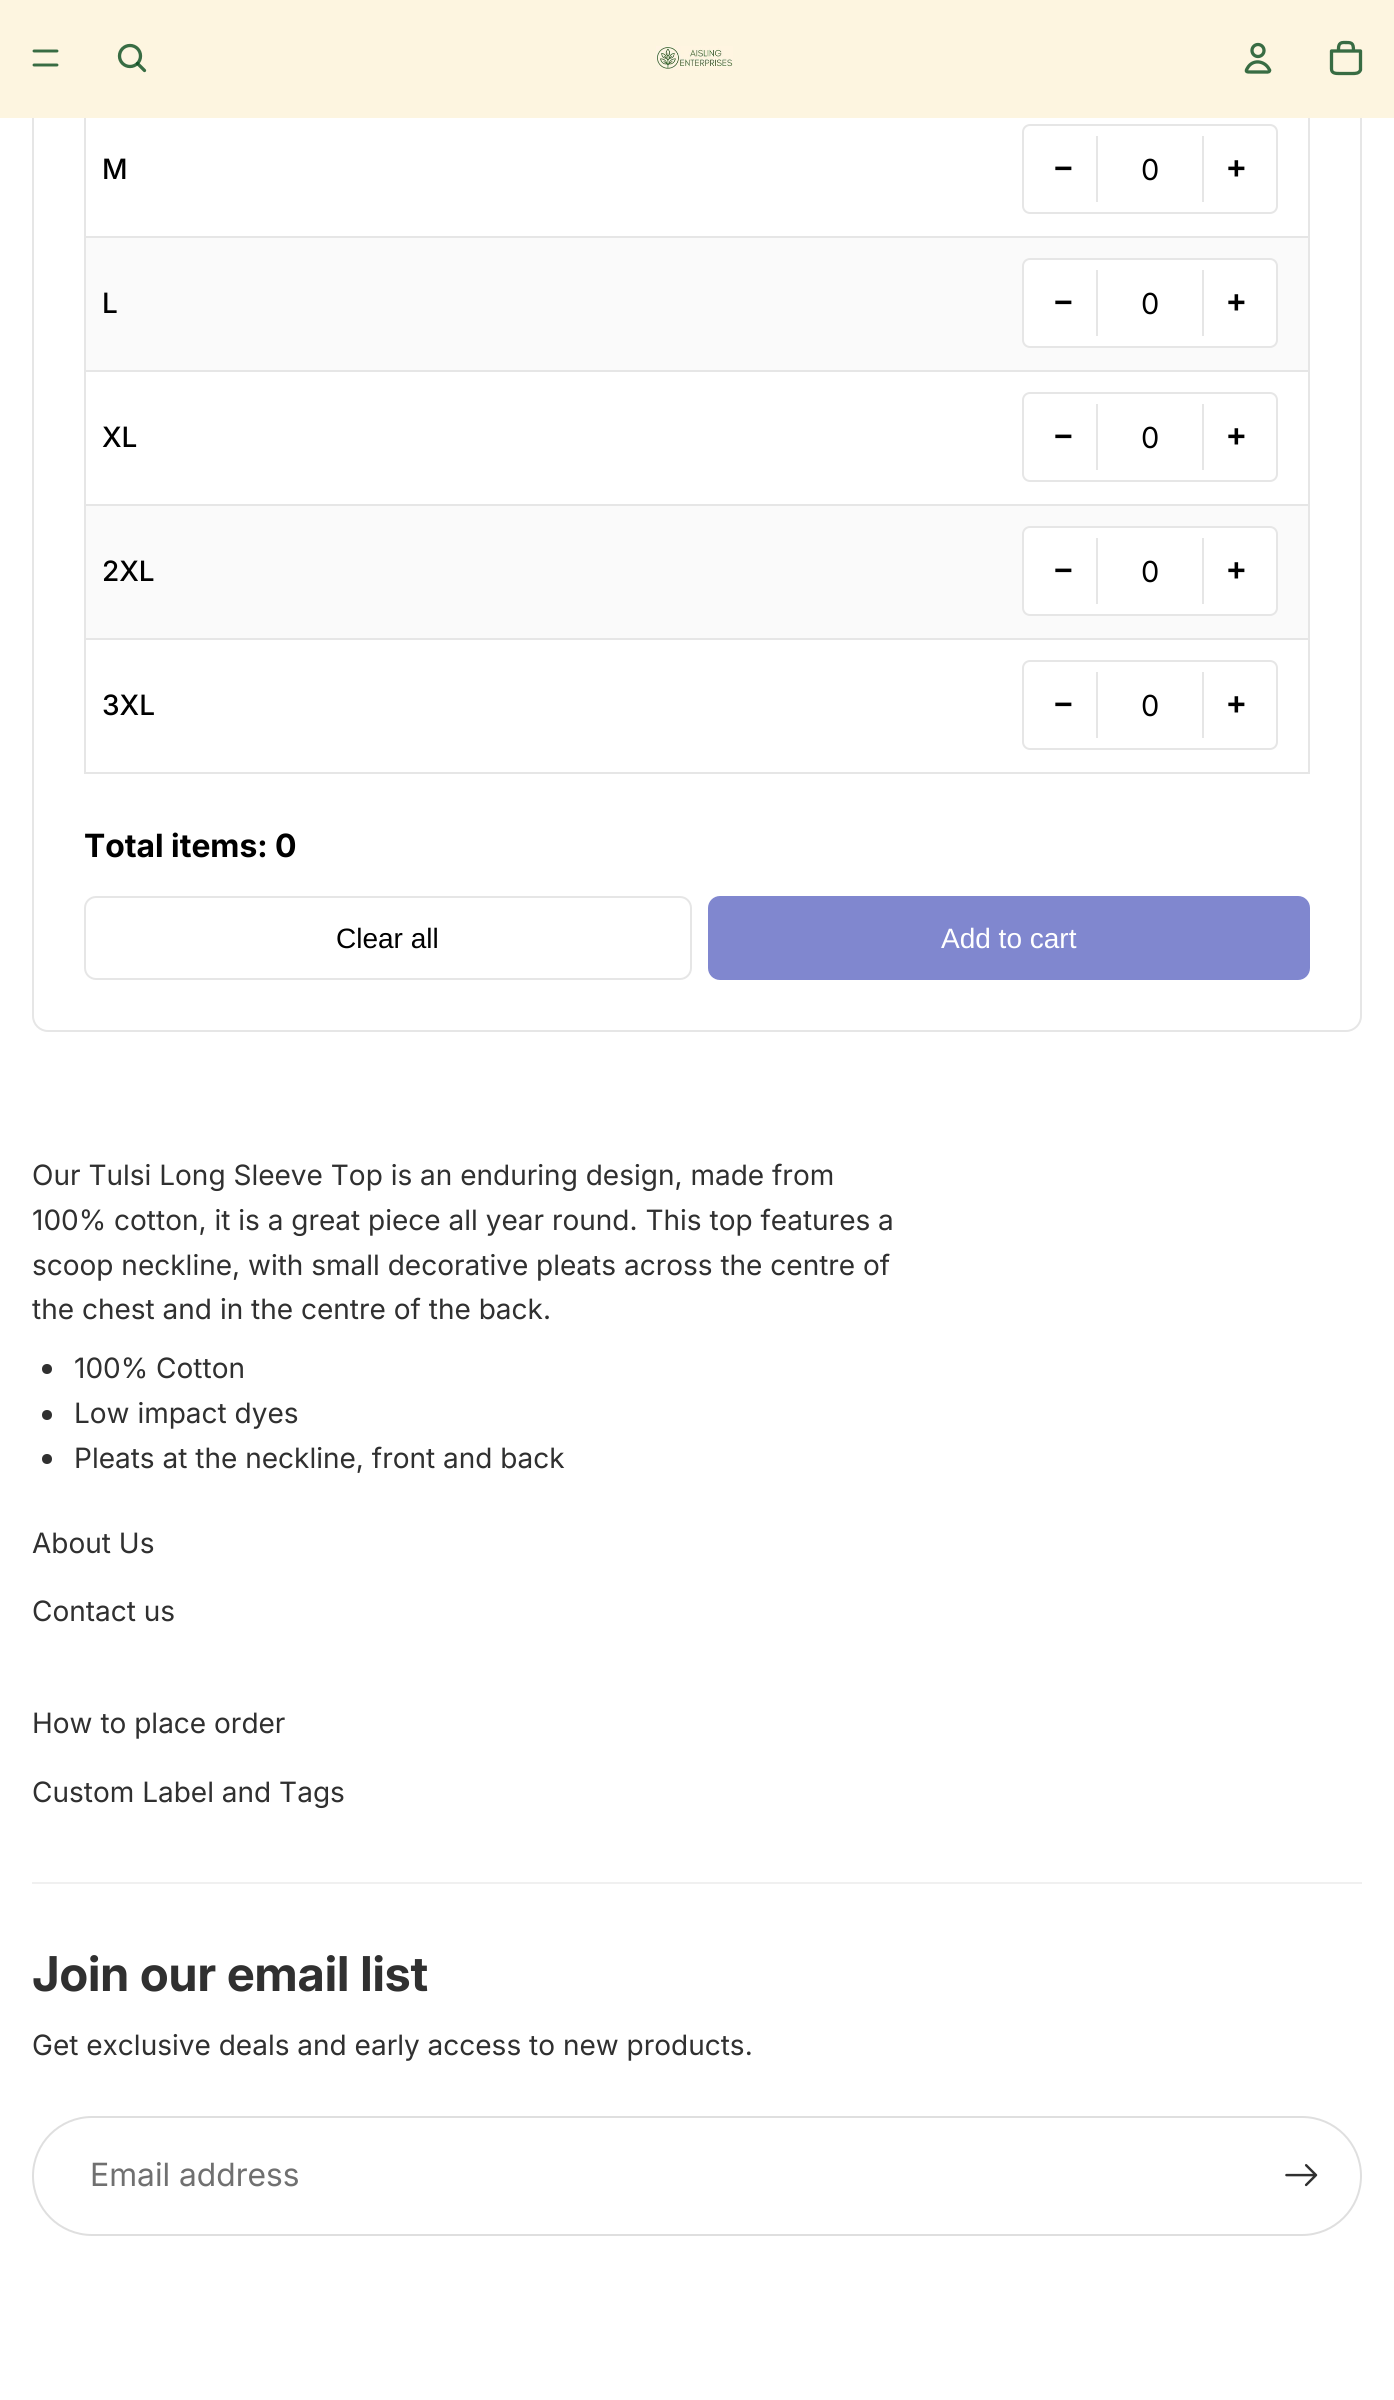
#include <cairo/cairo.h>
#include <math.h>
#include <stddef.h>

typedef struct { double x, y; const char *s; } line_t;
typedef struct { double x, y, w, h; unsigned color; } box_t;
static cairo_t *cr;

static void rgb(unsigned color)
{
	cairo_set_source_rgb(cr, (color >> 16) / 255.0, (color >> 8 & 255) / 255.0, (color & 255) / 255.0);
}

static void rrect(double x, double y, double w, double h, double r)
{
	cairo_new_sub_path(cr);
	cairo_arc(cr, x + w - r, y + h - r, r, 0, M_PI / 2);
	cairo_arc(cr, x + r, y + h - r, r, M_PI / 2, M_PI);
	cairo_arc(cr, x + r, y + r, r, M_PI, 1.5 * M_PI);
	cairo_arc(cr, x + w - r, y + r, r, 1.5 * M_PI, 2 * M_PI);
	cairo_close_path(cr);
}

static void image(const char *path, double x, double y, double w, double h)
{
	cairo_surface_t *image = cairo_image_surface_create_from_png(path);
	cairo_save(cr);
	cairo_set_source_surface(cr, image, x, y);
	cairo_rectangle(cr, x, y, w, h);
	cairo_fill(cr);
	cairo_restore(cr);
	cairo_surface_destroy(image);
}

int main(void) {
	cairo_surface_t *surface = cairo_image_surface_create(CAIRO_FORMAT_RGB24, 1394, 2400);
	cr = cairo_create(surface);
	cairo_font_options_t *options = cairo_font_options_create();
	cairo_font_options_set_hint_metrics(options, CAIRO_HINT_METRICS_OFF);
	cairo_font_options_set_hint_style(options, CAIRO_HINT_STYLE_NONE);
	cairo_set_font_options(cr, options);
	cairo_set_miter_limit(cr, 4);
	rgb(0xffffff);
	cairo_paint(cr);
	rrect(33, -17, 1328, 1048, 15);
	rgb(0xe6e6e6);
	cairo_stroke(cr);
	rgb(0xfdf5e0);
	cairo_rectangle(cr, 0, 0, 1394, 118);
	cairo_fill(cr);
	cairo_new_path(cr);
	cairo_move_to(cr, 34, 51);
	cairo_line_to(cr, 57, 51);
	cairo_move_to(cr, 34, 65);
	cairo_line_to(cr, 57, 65);
	rgb(0x386c43);
	cairo_set_line_width(cr, 2.9);
	cairo_set_line_cap(cr, CAIRO_LINE_CAP_ROUND);
	cairo_stroke(cr);
	cairo_arc(cr, 130, 56, 10.5, 0, 2 * M_PI);
	cairo_set_line_width(cr, 3.3);
	cairo_set_line_cap(cr, CAIRO_LINE_CAP_BUTT);
	cairo_stroke(cr);
	cairo_new_path(cr);
	cairo_move_to(cr, 137.5, 63.5);
	cairo_line_to(cr, 144.5, 70.5);
	cairo_set_source_rgba(cr, 0.051, 0.306, 0.129, 0.82);
	cairo_set_line_cap(cr, CAIRO_LINE_CAP_ROUND);
	cairo_set_line_join(cr, CAIRO_LINE_JOIN_ROUND);
	cairo_stroke(cr);
	image("img/1.png", 656, 46, 77, 24);
	cairo_arc(cr, 1258, 50.5, 6, 0, 2 * M_PI);
	rgb(0x386c43);
	cairo_set_line_cap(cr, CAIRO_LINE_CAP_BUTT);
	cairo_set_line_join(cr, CAIRO_LINE_JOIN_MITER);
	cairo_stroke(cr);
	cairo_new_path(cr);
	cairo_move_to(cr, 1247.5, 68);
	cairo_curve_to(cr, 1245, 72, 1246.5, 72, 1251, 72);
	cairo_line_to(cr, 1265, 72);
	cairo_curve_to(cr, 1265.5, 72, 1269, 72.5, 1269.5, 71);
	cairo_curve_to(cr, 1270, 70.5, 1269.5, 69.5, 1269, 69);
	cairo_curve_to(cr, 1264.5, 60.5, 1252.5, 59, 1247.5, 68);
	cairo_set_line_cap(cr, CAIRO_LINE_CAP_ROUND);
	cairo_set_line_join(cr, CAIRO_LINE_JOIN_ROUND);
	cairo_stroke(cr);
	cairo_new_path(cr);
	cairo_move_to(cr, 1331.5, 51);
	cairo_line_to(cr, 1360.5, 51);
	cairo_line_to(cr, 1360.5, 70);
	cairo_curve_to(cr, 1359, 73.5, 1355.5, 73.5, 1352.5, 73.5);
	cairo_line_to(cr, 1339.5, 73.5);
	cairo_curve_to(cr, 1336, 73.5, 1331.5, 73.5, 1331.5, 69);
	cairo_close_path(cr);
	cairo_move_to(cr, 1343.5, 42.5);
	cairo_curve_to(cr, 1351.5, 42.5, 1353.5, 42, 1353.5, 51);
	cairo_line_to(cr, 1338.5, 51);
	cairo_curve_to(cr, 1338.5, 47.5, 1338, 42.5, 1343.5, 42.5);
	cairo_stroke(cr);
	{
		static const box_t items[] = {
			{1308, 118, 2, 656, 0xe6e6e6},
			{84, 772, 1226, 2, 0xe6e6e6},
			{84, 118, 2, 656, 0xe6e6e6},
			{86, 236, 1222, 2, 0xe6e6e6},
		};
		for (size_t i = 0; i < sizeof items / sizeof *items; i++) {
			rgb(items[i].color);
			cairo_rectangle(cr, items[i].x, items[i].y, items[i].w, items[i].h);
			cairo_fill(cr);
		}
	}
	rrect(1023, 125, 254, 88, 7);
	cairo_set_line_width(cr, 2);
	cairo_set_line_cap(cr, CAIRO_LINE_CAP_BUTT);
	cairo_set_line_join(cr, CAIRO_LINE_JOIN_MITER);
	cairo_stroke(cr);
	{
		static const box_t items[] = {
			{1202, 136, 2, 66, 0xe6e6e6},
			{1096, 136, 2, 66, 0xe6e6e6},
			{86, 238, 1222, 132, 0xfafafa},
			{86, 370, 1222, 2, 0xe6e6e6},
		};
		for (size_t i = 0; i < sizeof items / sizeof *items; i++) {
			rgb(items[i].color);
			cairo_rectangle(cr, items[i].x, items[i].y, items[i].w, items[i].h);
			cairo_fill(cr);
		}
	}
	rgb(0xffffff);
	rrect(1023, 259, 254, 88, 7);
	cairo_fill_preserve(cr);
	rgb(0xe6e6e6);
	cairo_stroke(cr);
	{
		static const box_t items[] = {
			{1202, 270, 2, 66, 0xe6e6e6},
			{1096, 270, 2, 66, 0xe6e6e6},
			{86, 504, 1222, 2, 0xe6e6e6},
		};
		for (size_t i = 0; i < sizeof items / sizeof *items; i++) {
			rgb(items[i].color);
			cairo_rectangle(cr, items[i].x, items[i].y, items[i].w, items[i].h);
			cairo_fill(cr);
		}
	}
	rrect(1023, 393, 254, 88, 7);
	cairo_stroke(cr);
	{
		static const box_t items[] = {
			{1202, 404, 2, 66, 0xe6e6e6},
			{1096, 404, 2, 66, 0xe6e6e6},
			{86, 506, 1222, 132, 0xfafafa},
			{86, 638, 1222, 2, 0xe6e6e6},
		};
		for (size_t i = 0; i < sizeof items / sizeof *items; i++) {
			rgb(items[i].color);
			cairo_rectangle(cr, items[i].x, items[i].y, items[i].w, items[i].h);
			cairo_fill(cr);
		}
	}
	rgb(0xffffff);
	rrect(1023, 527, 254, 88, 7);
	cairo_fill_preserve(cr);
	rgb(0xe6e6e6);
	cairo_stroke(cr);
	cairo_rectangle(cr, 1202, 538, 2, 66);
	cairo_fill(cr);
	cairo_rectangle(cr, 1096, 538, 2, 66);
	cairo_fill(cr);
	rrect(1023, 661, 254, 88, 7);
	cairo_stroke(cr);
	cairo_rectangle(cr, 1202, 672, 2, 66);
	cairo_fill(cr);
	cairo_rectangle(cr, 1096, 672, 2, 66);
	cairo_fill(cr);
	rrect(85, 897, 606, 82, 11);
	cairo_stroke(cr);
	rgb(0x8087cf);
	rrect(708, 896, 602, 84, 12);
	cairo_fill(cr);
	rgb(0x303030);
	cairo_arc(cr, 47, 1369, 5, 0, 2 * M_PI);
	cairo_fill(cr);
	cairo_arc(cr, 47, 1415, 5, 0, 2 * M_PI);
	cairo_fill(cr);
	cairo_arc(cr, 47, 1459, 5, 0, 2 * M_PI);
	cairo_fill(cr);
	rgb(0xf0f0f0);
	cairo_new_path(cr);
	cairo_move_to(cr, 1362, 1882);
	cairo_line_to(cr, 1362, 1884);
	cairo_line_to(cr, 1360, 1882);
	cairo_close_path(cr);
	cairo_fill(cr);
	cairo_set_source_rgba(cr, 0, 0, 0, 0.06);
	cairo_new_path(cr);
	cairo_move_to(cr, 1362, 1884);
	cairo_line_to(cr, 32, 1884);
	cairo_line_to(cr, 32, 1882);
	cairo_line_to(cr, 1360, 1882);
	cairo_close_path(cr);
	cairo_fill(cr);
	rrect(33, 2117, 1328, 118, 59);
	rgb(0xdfdfdf);
	cairo_stroke(cr);
	image("img/2.png", 1285, 2164, 33, 23);
	cairo_select_font_face(cr, "Inter Medium", CAIRO_FONT_SLANT_NORMAL, CAIRO_FONT_WEIGHT_NORMAL);
	cairo_set_font_size(cr, 28);
	rgb(0x000000);
	cairo_move_to(cr, 102, 179);
	cairo_show_text(cr, "M");
	cairo_select_font_face(cr, "Liberation Sans", CAIRO_FONT_SLANT_NORMAL, CAIRO_FONT_WEIGHT_BOLD);
	cairo_set_font_size(cr, 32);
	cairo_move_to(cr, 1054, 179);
	cairo_show_text(cr, "−");
	cairo_select_font_face(cr, "Inter", CAIRO_FONT_SLANT_NORMAL, CAIRO_FONT_WEIGHT_NORMAL);
	cairo_set_font_size(cr, 29);
	cairo_move_to(cr, 1141, 180);
	cairo_show_text(cr, "0");
	cairo_select_font_face(cr, "Liberation Sans", CAIRO_FONT_SLANT_NORMAL, CAIRO_FONT_WEIGHT_BOLD);
	cairo_set_font_size(cr, 32);
	cairo_move_to(cr, 1227, 179);
	cairo_show_text(cr, "+");
	cairo_select_font_face(cr, "Inter Medium", CAIRO_FONT_SLANT_NORMAL, CAIRO_FONT_WEIGHT_NORMAL);
	cairo_set_font_size(cr, 28);
	cairo_move_to(cr, 102, 313);
	cairo_show_text(cr, "L");
	cairo_select_font_face(cr, "Liberation Sans", CAIRO_FONT_SLANT_NORMAL, CAIRO_FONT_WEIGHT_BOLD);
	cairo_set_font_size(cr, 32);
	cairo_move_to(cr, 1054, 313);
	cairo_show_text(cr, "−");
	cairo_select_font_face(cr, "Inter", CAIRO_FONT_SLANT_NORMAL, CAIRO_FONT_WEIGHT_NORMAL);
	cairo_set_font_size(cr, 29);
	cairo_move_to(cr, 1141, 314);
	cairo_show_text(cr, "0");
	cairo_select_font_face(cr, "Liberation Sans", CAIRO_FONT_SLANT_NORMAL, CAIRO_FONT_WEIGHT_BOLD);
	cairo_set_font_size(cr, 32);
	cairo_move_to(cr, 1227, 313);
	cairo_show_text(cr, "+");
	cairo_select_font_face(cr, "Inter Medium", CAIRO_FONT_SLANT_NORMAL, CAIRO_FONT_WEIGHT_NORMAL);
	cairo_set_font_size(cr, 28);
	cairo_move_to(cr, 102, 447);
	cairo_show_text(cr, "XL");
	cairo_select_font_face(cr, "Liberation Sans", CAIRO_FONT_SLANT_NORMAL, CAIRO_FONT_WEIGHT_BOLD);
	cairo_set_font_size(cr, 32);
	cairo_move_to(cr, 1054, 447);
	cairo_show_text(cr, "−");
	cairo_select_font_face(cr, "Inter", CAIRO_FONT_SLANT_NORMAL, CAIRO_FONT_WEIGHT_NORMAL);
	cairo_set_font_size(cr, 29);
	cairo_move_to(cr, 1141, 448);
	cairo_show_text(cr, "0");
	cairo_select_font_face(cr, "Liberation Sans", CAIRO_FONT_SLANT_NORMAL, CAIRO_FONT_WEIGHT_BOLD);
	cairo_set_font_size(cr, 32);
	cairo_move_to(cr, 1227, 447);
	cairo_show_text(cr, "+");
	cairo_select_font_face(cr, "Inter Medium", CAIRO_FONT_SLANT_NORMAL, CAIRO_FONT_WEIGHT_NORMAL);
	cairo_set_font_size(cr, 28);
	cairo_move_to(cr, 102, 581);
	cairo_show_text(cr, "2XL");
	cairo_select_font_face(cr, "Liberation Sans", CAIRO_FONT_SLANT_NORMAL, CAIRO_FONT_WEIGHT_BOLD);
	cairo_set_font_size(cr, 32);
	cairo_move_to(cr, 1054, 581);
	cairo_show_text(cr, "−");
	cairo_select_font_face(cr, "Inter", CAIRO_FONT_SLANT_NORMAL, CAIRO_FONT_WEIGHT_NORMAL);
	cairo_set_font_size(cr, 29);
	cairo_move_to(cr, 1141, 582);
	cairo_show_text(cr, "0");
	cairo_select_font_face(cr, "Liberation Sans", CAIRO_FONT_SLANT_NORMAL, CAIRO_FONT_WEIGHT_BOLD);
	cairo_set_font_size(cr, 32);
	cairo_move_to(cr, 1227, 581);
	cairo_show_text(cr, "+");
	cairo_select_font_face(cr, "Inter Medium", CAIRO_FONT_SLANT_NORMAL, CAIRO_FONT_WEIGHT_NORMAL);
	cairo_set_font_size(cr, 28);
	cairo_move_to(cr, 102, 715);
	cairo_show_text(cr, "3XL");
	cairo_select_font_face(cr, "Liberation Sans", CAIRO_FONT_SLANT_NORMAL, CAIRO_FONT_WEIGHT_BOLD);
	cairo_set_font_size(cr, 32);
	cairo_move_to(cr, 1054, 715);
	cairo_show_text(cr, "−");
	cairo_select_font_face(cr, "Inter", CAIRO_FONT_SLANT_NORMAL, CAIRO_FONT_WEIGHT_NORMAL);
	cairo_set_font_size(cr, 29);
	cairo_move_to(cr, 1141, 716);
	cairo_show_text(cr, "0");
	cairo_select_font_face(cr, "Liberation Sans", CAIRO_FONT_SLANT_NORMAL, CAIRO_FONT_WEIGHT_BOLD);
	cairo_set_font_size(cr, 32);
	cairo_move_to(cr, 1227, 715);
	cairo_show_text(cr, "+");
	cairo_select_font_face(cr, "Inter", CAIRO_FONT_SLANT_NORMAL, CAIRO_FONT_WEIGHT_BOLD);
	cairo_move_to(cr, 84, 857);
	cairo_show_text(cr, "Total items: 0");
	cairo_select_font_face(cr, "Liberation Sans", CAIRO_FONT_SLANT_NORMAL, CAIRO_FONT_WEIGHT_NORMAL);
	cairo_set_font_size(cr, 28);
	cairo_move_to(cr, 336, 948);
	cairo_show_text(cr, "Clear all");
	rgb(0xffffff);
	cairo_move_to(cr, 941, 948);
	cairo_show_text(cr, "Add to cart");
	cairo_select_font_face(cr, "Inter", CAIRO_FONT_SLANT_NORMAL, CAIRO_FONT_WEIGHT_NORMAL);
	rgb(0x303030);
	{
		static const line_t items[] = {
			{32, 1185, "Our Tulsi Long Sleeve Top is an enduring design, made from"},
			{32, 1230, "100% cotton, it is a great piece all year round. This top features a"},
			{32, 1275, "scoop neckline, with small decorative pleats across the centre of"},
			{32, 1319, "the chest and in the centre of the back."},
			{74, 1378, "100% Cotton"},
			{74, 1423, "Low impact dyes"},
			{74, 1468, "Pleats at the neckline, front and back"},
			{32, 1553, "About Us"},
			{32, 1621, "Contact us"},
			{32, 1733, "How to place order"},
			{32, 1802, "Custom Label and Tags"},
		};
		for (size_t i = 0; i < sizeof items / sizeof *items; i++) {
			cairo_move_to(cr, items[i].x, items[i].y);
			cairo_show_text(cr, items[i].s);
		}
	}
	cairo_select_font_face(cr, "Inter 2", CAIRO_FONT_SLANT_NORMAL, CAIRO_FONT_WEIGHT_BOLD);
	cairo_set_font_size(cr, 48);
	cairo_move_to(cr, 32, 1991);
	cairo_show_text(cr, "Join our email list");
	cairo_select_font_face(cr, "Inter", CAIRO_FONT_SLANT_NORMAL, CAIRO_FONT_WEIGHT_NORMAL);
	cairo_set_font_size(cr, 28);
	cairo_move_to(cr, 32, 2055);
	cairo_show_text(cr, "Get exclusive deals and early access to new products.");
	cairo_select_font_face(cr, "Inter 2", CAIRO_FONT_SLANT_NORMAL, CAIRO_FONT_WEIGHT_NORMAL);
	cairo_set_font_size(cr, 32);
	rgb(0x707070);
	cairo_move_to(cr, 90, 2186);
	cairo_show_text(cr, "Email address");
	cairo_surface_write_to_png(surface, "page.png");
	cairo_font_options_destroy(options);
	cairo_destroy(cr);
	cairo_surface_destroy(surface);
	return 0;
}
